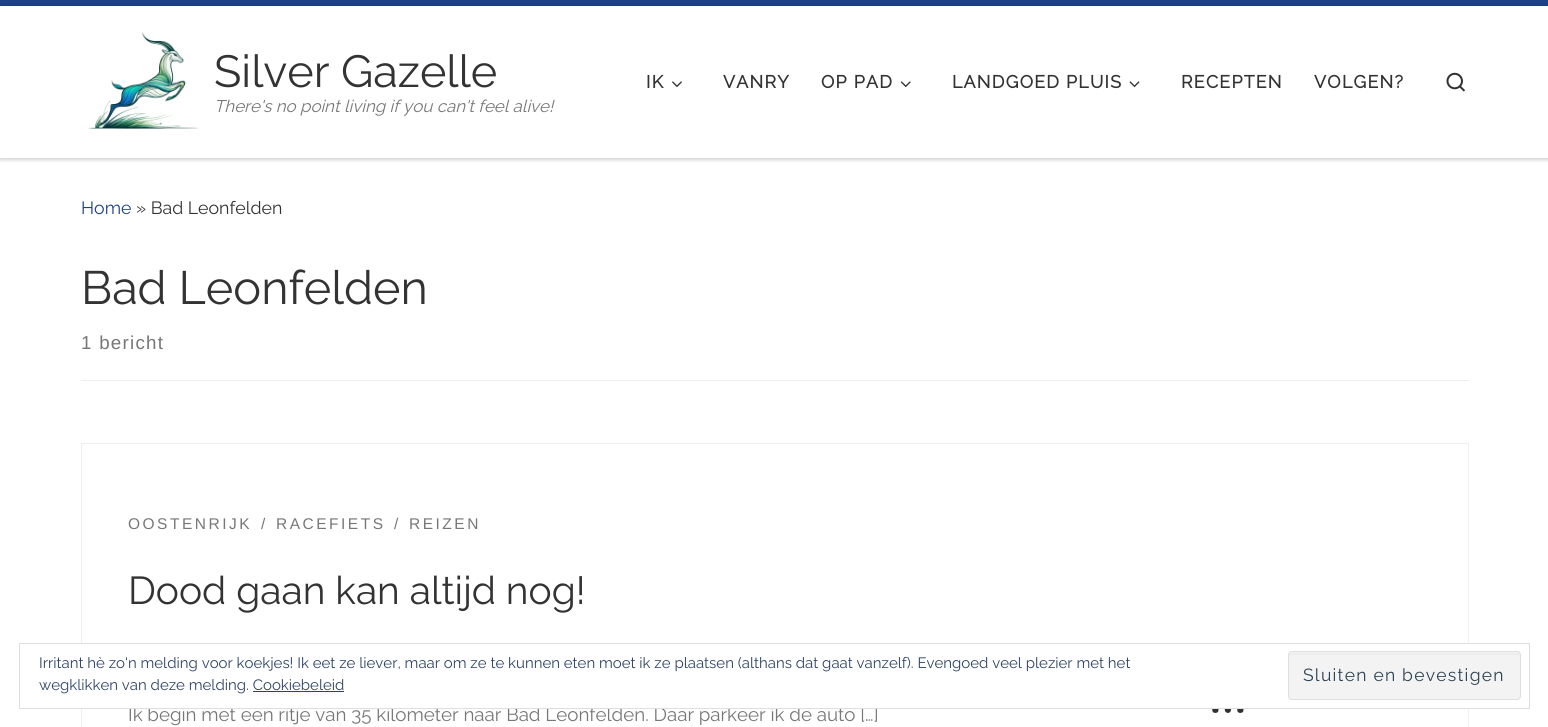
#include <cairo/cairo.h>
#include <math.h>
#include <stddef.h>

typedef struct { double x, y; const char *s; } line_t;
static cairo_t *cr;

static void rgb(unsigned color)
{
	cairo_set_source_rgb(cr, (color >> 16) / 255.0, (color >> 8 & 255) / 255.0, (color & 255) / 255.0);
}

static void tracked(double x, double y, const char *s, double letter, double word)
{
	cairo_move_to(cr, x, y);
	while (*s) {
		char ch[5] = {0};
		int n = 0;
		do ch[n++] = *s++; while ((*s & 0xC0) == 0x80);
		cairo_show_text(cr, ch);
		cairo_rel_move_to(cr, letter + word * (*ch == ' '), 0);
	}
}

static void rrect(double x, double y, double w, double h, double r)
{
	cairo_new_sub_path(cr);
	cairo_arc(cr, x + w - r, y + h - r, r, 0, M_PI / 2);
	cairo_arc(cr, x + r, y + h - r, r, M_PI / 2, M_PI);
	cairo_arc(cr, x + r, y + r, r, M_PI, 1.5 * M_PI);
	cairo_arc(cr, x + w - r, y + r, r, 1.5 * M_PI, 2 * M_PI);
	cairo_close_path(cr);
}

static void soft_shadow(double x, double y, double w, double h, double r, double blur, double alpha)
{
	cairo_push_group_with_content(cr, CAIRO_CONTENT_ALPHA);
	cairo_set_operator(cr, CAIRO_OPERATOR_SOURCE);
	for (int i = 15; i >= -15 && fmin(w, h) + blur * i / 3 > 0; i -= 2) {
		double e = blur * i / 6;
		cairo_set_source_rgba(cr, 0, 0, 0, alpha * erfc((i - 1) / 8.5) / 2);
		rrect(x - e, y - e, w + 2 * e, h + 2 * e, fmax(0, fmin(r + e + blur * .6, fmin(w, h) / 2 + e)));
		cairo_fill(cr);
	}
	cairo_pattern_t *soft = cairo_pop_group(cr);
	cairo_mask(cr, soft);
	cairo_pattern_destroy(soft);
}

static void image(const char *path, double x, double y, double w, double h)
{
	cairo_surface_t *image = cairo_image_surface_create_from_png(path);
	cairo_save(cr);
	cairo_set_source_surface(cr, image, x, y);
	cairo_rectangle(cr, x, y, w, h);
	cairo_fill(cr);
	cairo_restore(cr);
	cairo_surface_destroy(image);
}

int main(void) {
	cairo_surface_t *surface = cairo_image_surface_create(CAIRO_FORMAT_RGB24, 1548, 727);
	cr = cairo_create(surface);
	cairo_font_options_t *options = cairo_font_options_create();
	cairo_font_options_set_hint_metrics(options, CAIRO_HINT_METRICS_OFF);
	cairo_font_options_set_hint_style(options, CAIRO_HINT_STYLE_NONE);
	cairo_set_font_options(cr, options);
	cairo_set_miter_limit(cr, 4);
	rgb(0xffffff);
	cairo_paint(cr);
	rgb(0x666666);
	soft_shadow(0, 3, 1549, 158, 0, 1, 0.08);
	rgb(0x1f4388);
	cairo_rectangle(cr, 0, 0, 1548, 6);
	cairo_fill(cr);
	rgb(0xefefef);
	cairo_new_path(cr);
	cairo_move_to(cr, 0, 158);
	cairo_line_to(cr, 0, 159);
	cairo_line_to(cr, 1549, 159);
	cairo_line_to(cr, 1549, 8);
	cairo_line_to(cr, 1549, 158);
	cairo_close_path(cr);
	cairo_fill(cr);
	rgb(0x000000);
	soft_shadow(0, 6, 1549, 152, 0, 3, 0.2);
	rgb(0xffffff);
	cairo_rectangle(cr, 0, 6, 1548, 152);
	cairo_fill(cr);
	image("img/1.png", 88, 32, 111, 97);
	image("img/2.png", 672, 81, 10, 7);
	image("img/3.png", 900, 81, 11, 7);
	image("img/4.png", 1129, 81, 11, 7);
	image("img/5.png", 1446, 72, 20, 20);
	rgb(0xeceeef);
	cairo_rectangle(cr, 81, 380, 1388, 1);
	cairo_fill(cr);
	image("img/6.png", 1212, 709, 32, 4);
	cairo_rectangle(cr, 81.5, 443.5, 1387, 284);
	rgb(0xefefef);
	cairo_set_line_width(cr, 1);
	cairo_stroke(cr);
	cairo_select_font_face(cr, "Raleway Thin", CAIRO_FONT_SLANT_NORMAL, CAIRO_FONT_WEIGHT_NORMAL);
	cairo_set_font_size(cr, 45);
	rgb(0x333333);
	cairo_move_to(cr, 214, 87);
	cairo_show_text(cr, "Silver Gazelle");
	cairo_select_font_face(cr, "Raleway Thin", CAIRO_FONT_SLANT_ITALIC, CAIRO_FONT_WEIGHT_NORMAL);
	cairo_set_font_size(cr, 16.9);
	rgb(0x777777);
	cairo_move_to(cr, 214, 112);
	cairo_show_text(cr, "There's no point living if you can't feel alive!");
	cairo_select_font_face(cr, "Raleway", CAIRO_FONT_SLANT_NORMAL, CAIRO_FONT_WEIGHT_BOLD);
	cairo_set_font_size(cr, 17.75);
	rgb(0x333333);
	{
		static const line_t items[] = {
			{646, 88, "IK"},
			{723, 88, "VANRY"},
			{821, 88, "OP PAD"},
			{952, 88, "LANDGOED PLUIS"},
			{1181, 88, "RECEPTEN"},
			{1314, 88, "VOLGEN?"},
		};
		for (size_t i = 0; i < sizeof items / sizeof *items; i++) {
			tracked(items[i].x, items[i].y, items[i].s, 1.25, 0);
		}
	}
	cairo_select_font_face(cr, "Raleway Thin", CAIRO_FONT_SLANT_NORMAL, CAIRO_FONT_WEIGHT_NORMAL);
	rgb(0x1f4388);
	cairo_move_to(cr, 81, 214);
	cairo_show_text(cr, "Home");
	rgb(0x333333);
	cairo_move_to(cr, 136, 214);
	cairo_show_text(cr, "» Bad Leonfelden");
	cairo_set_font_size(cr, 46.75);
	cairo_move_to(cr, 81, 304);
	cairo_show_text(cr, "Bad Leonfelden");
	cairo_select_font_face(cr, "Liberation Sans", CAIRO_FONT_SLANT_NORMAL, CAIRO_FONT_WEIGHT_NORMAL);
	cairo_set_font_size(cr, 18.75);
	rgb(0x777777);
	tracked(81, 349, "1 bericht", 1.25, 0);
	cairo_set_font_size(cr, 15.5);
	{
		static const line_t items[] = {
			{128, 529, "OOSTENRIJK"},
			{261, 529, "/"},
			{276, 529, "RACEFIETS"},
			{394, 529, "/"},
			{409, 529, "REIZEN"},
		};
		for (size_t i = 0; i < sizeof items / sizeof *items; i++) {
			tracked(items[i].x, items[i].y, items[i].s, 2.5, 0);
		}
	}
	cairo_select_font_face(cr, "Raleway Thin", CAIRO_FONT_SLANT_NORMAL, CAIRO_FONT_WEIGHT_NORMAL);
	cairo_set_font_size(cr, 38.9);
	rgb(0x333333);
	cairo_move_to(cr, 128, 604);
	cairo_show_text(cr, "Dood gaan kan altijd nog!");
	cairo_set_font_size(cr, 18.75);
	rgb(0x777777);
	cairo_move_to(cr, 128, 721);
	cairo_show_text(cr, "Ik begin met een ritje van 35 kilometer naar Bad Leonfelden. Daar parkeer ik de auto […]");
	rgb(0xffffff);
	cairo_rectangle(cr, 81, 644, 1388, 64);
	cairo_fill(cr);
	cairo_rectangle(cr, 19.5, 643.5, 1510, 65);
	rgb(0xdedede);
	cairo_stroke(cr);
	cairo_set_font_size(cr, 15);
	rgb(0x2e4467);
	cairo_move_to(cr, 39, 668);
	cairo_show_text(cr, "Irritant hè zo'n melding voor koekjes! Ik eet ze liever, maar om ze te kunnen eten moet ik ze plaatsen (althans dat gaat vanzelf). Evengoed veel plezier met het");
	rgb(0xf3f3f3);
	rrect(1288, 651, 233, 49, 4);
	cairo_fill(cr);
	rgb(0xededed);
	cairo_new_path(cr);
	cairo_move_to(cr, 1291, 655);
	cairo_line_to(cr, 1518, 655);
	cairo_curve_to(cr, 1519, 655, 1520, 656, 1520, 658);
	cairo_curve_to(cr, 1520, 656, 1520, 654, 1518, 653);
	cairo_line_to(cr, 1292, 653);
	cairo_curve_to(cr, 1289, 653, 1289, 656, 1289, 658);
	cairo_curve_to(cr, 1289, 656, 1290, 655, 1291, 655);
	cairo_close_path(cr);
	cairo_fill(cr);
	rrect(1288.5, 651.5, 232, 48, 3.5);
	rgb(0xdedede);
	cairo_stroke(cr);
	cairo_set_font_size(cr, 17.5);
	rgb(0x2e4453);
	tracked(1303, 681, "Sluiten en bevestigen", 1.25, 0);
	cairo_set_font_size(cr, 15);
	rgb(0x2e4467);
	cairo_move_to(cr, 39, 690);
	cairo_show_text(cr, "wegklikken van deze melding. Cookiebeleid");
	cairo_rectangle(cr, 253, 691, 91, 1);
	cairo_fill(cr);
	cairo_surface_write_to_png(surface, "page.png");
	cairo_font_options_destroy(options);
	cairo_destroy(cr);
	cairo_surface_destroy(surface);
	return 0;
}
